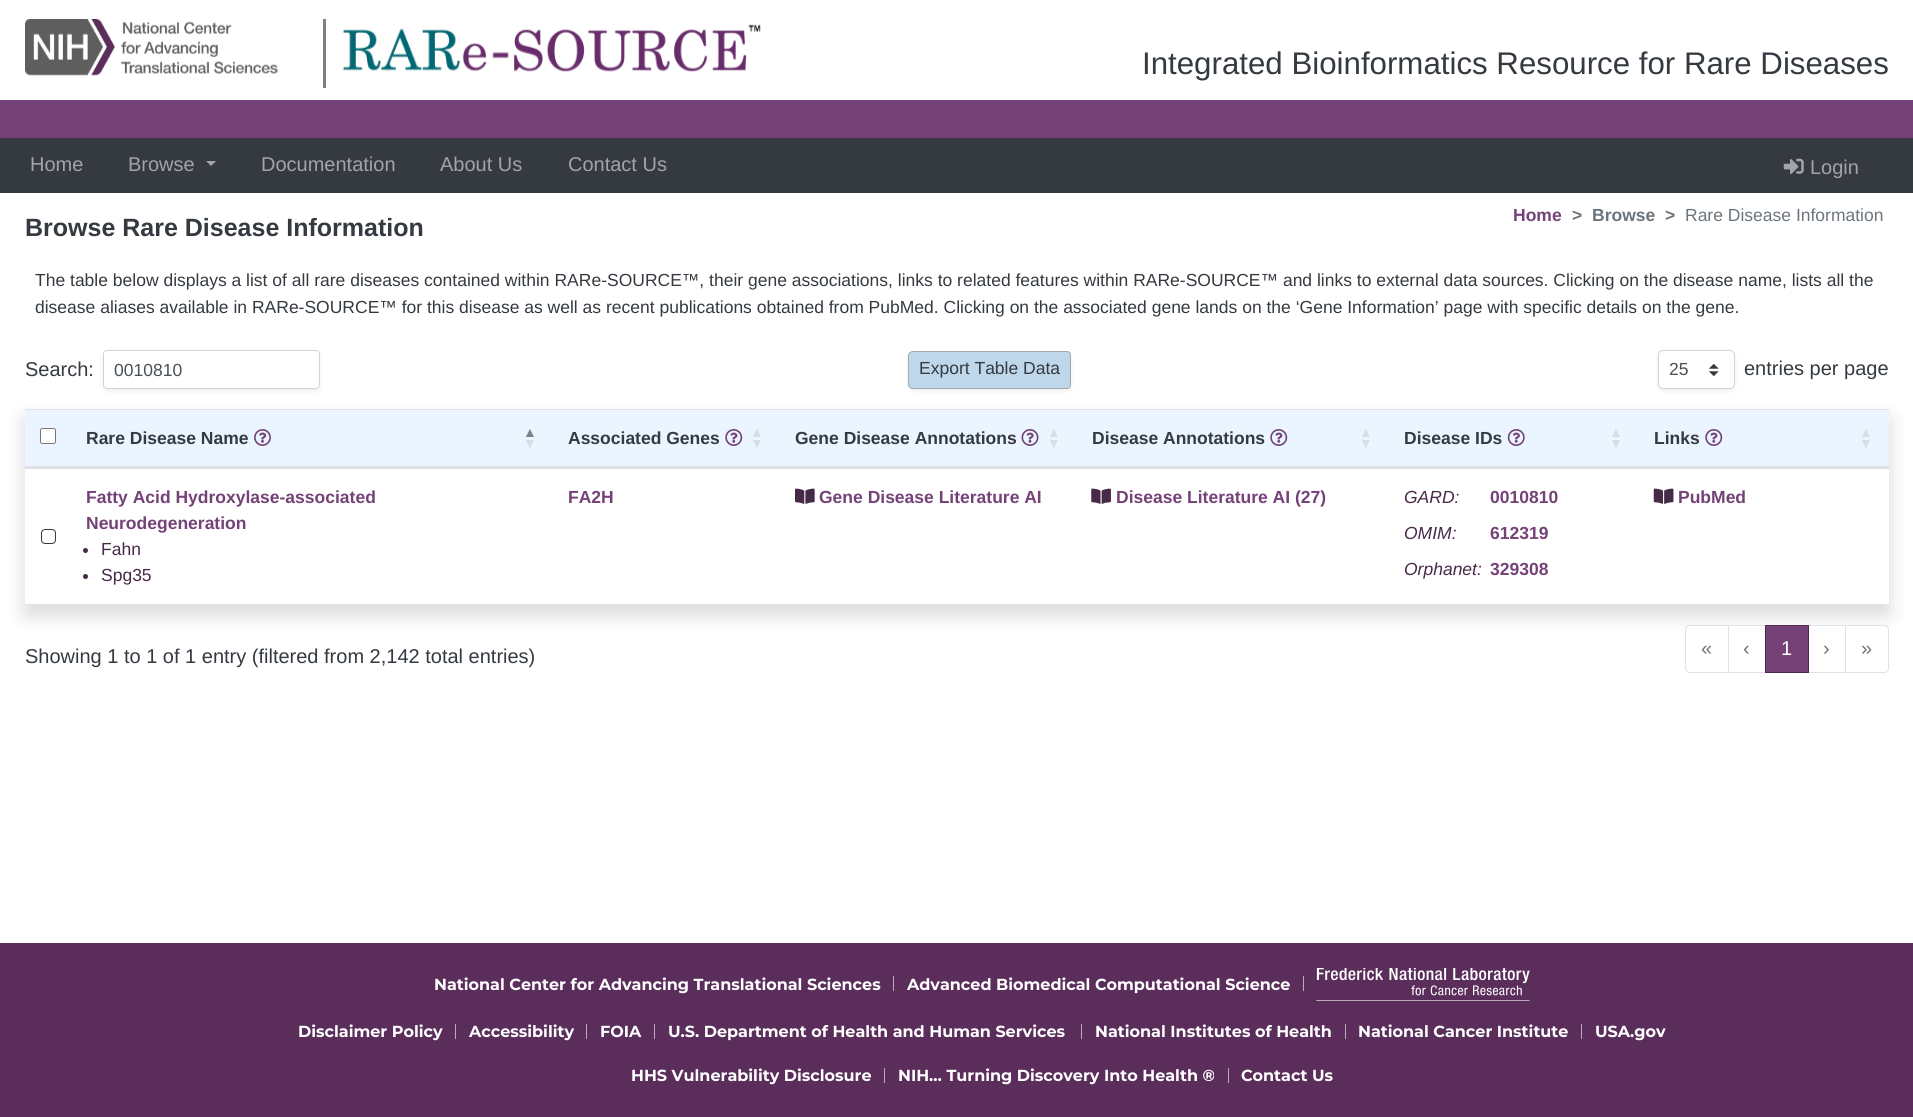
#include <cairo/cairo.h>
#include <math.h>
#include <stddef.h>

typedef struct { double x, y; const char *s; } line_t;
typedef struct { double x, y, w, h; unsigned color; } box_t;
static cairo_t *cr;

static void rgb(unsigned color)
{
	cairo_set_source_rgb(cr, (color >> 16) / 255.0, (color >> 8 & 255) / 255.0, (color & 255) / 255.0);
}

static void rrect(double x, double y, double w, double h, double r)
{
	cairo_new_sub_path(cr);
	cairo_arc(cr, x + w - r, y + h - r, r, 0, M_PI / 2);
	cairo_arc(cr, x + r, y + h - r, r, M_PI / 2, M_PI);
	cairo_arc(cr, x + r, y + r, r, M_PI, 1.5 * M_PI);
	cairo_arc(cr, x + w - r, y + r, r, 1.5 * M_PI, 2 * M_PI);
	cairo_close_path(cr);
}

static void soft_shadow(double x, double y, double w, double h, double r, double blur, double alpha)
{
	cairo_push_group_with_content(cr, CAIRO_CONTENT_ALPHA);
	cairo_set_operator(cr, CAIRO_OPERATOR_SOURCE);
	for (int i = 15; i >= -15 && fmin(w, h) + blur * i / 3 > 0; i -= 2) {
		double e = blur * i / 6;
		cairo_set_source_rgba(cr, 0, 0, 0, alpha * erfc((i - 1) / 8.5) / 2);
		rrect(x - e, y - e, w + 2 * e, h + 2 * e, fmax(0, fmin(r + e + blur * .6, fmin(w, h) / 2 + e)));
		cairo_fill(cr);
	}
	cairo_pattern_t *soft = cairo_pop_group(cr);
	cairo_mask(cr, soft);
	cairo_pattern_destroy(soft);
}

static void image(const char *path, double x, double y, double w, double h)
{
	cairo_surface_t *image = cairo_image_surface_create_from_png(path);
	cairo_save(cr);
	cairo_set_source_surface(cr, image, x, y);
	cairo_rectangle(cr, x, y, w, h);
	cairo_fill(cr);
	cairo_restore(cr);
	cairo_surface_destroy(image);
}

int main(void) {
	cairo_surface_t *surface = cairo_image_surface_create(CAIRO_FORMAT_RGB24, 1913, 1117);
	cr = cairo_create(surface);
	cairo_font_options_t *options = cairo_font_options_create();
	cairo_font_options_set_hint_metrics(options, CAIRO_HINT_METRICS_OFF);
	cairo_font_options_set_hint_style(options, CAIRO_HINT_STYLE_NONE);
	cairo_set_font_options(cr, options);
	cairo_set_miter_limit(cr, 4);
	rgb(0xffffff);
	cairo_paint(cr);
	image("img/1.png", 25, 19, 253, 57);
	rgb(0x808080);
	cairo_rectangle(cr, 323, 19, 3, 69);
	cairo_fill(cr);
	image("img/2.png", 342, 24, 419, 48);
	rgb(0x754278);
	cairo_rectangle(cr, 0, 100, 1913, 38);
	cairo_fill(cr);
	rgb(0x343a40);
	cairo_rectangle(cr, 0, 138, 1913, 55);
	cairo_fill(cr);
	rgb(0xa2a4a7);
	cairo_new_path(cr);
	cairo_move_to(cr, 206, 161);
	cairo_line_to(cr, 216, 161);
	cairo_line_to(cr, 211, 166);
	cairo_close_path(cr);
	cairo_fill(cr);
	image("img/3.png", 1783, 158, 21, 16);
	cairo_save(cr);
	cairo_set_fill_rule(cr, CAIRO_FILL_RULE_EVEN_ODD);
	cairo_new_path(cr);
	cairo_move_to(cr, 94, 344);
	cairo_line_to(cr, 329, 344);
	cairo_line_to(cr, 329, 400);
	cairo_line_to(cr, 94, 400);
	cairo_close_path(cr);
	cairo_move_to(cr, 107, 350);
	cairo_line_to(cr, 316, 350);
	cairo_curve_to(cr, 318, 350, 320, 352, 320, 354);
	cairo_line_to(cr, 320, 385);
	cairo_curve_to(cr, 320, 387, 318, 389, 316, 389);
	cairo_line_to(cr, 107, 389);
	cairo_curve_to(cr, 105, 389, 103, 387, 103, 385);
	cairo_line_to(cr, 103, 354);
	cairo_curve_to(cr, 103, 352, 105, 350, 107, 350);
	cairo_close_path(cr);
	cairo_clip(cr);
	rgb(0x000000);
	soft_shadow(103, 353, 217, 38, 4, 2.5, 0.07);
	cairo_restore(cr);
	rrect(103.5, 350.5, 216, 38, 3.5);
	rgb(0xced4da);
	cairo_set_line_width(cr, 1);
	cairo_stroke(cr);
	rgb(0x000000);
	soft_shadow(908, 354, 163, 37, 5, 2.5, 0.07);
	rgb(0xbfd7ea);
	cairo_new_path(cr);
	cairo_move_to(cr, 913, 351.5);
	cairo_line_to(cr, 1067, 351.5);
	cairo_curve_to(cr, 1069, 351.5, 1070.5, 353, 1070.5, 355);
	cairo_line_to(cr, 1070.5, 385);
	cairo_curve_to(cr, 1070.5, 387, 1069, 388.5, 1067, 388.5);
	cairo_line_to(cr, 913, 388.5);
	cairo_curve_to(cr, 910.5, 388.5, 908.5, 386.5, 908.5, 384);
	cairo_line_to(cr, 908.5, 356);
	cairo_curve_to(cr, 908.5, 353.5, 910.5, 351.5, 913, 351.5);
	cairo_close_path(cr);
	cairo_fill_preserve(cr);
	rgb(0xa3a9aa);
	cairo_stroke(cr);
	rgb(0x000000);
	soft_shadow(1658, 353, 77, 38, 5, 2.5, 0.07);
	rgb(0xffffff);
	rrect(1658, 350, 77, 39, 5);
	cairo_fill(cr);
	image("img/4.png", 1709, 364, 10, 12);
	rrect(1658.5, 350.5, 76, 38, 4.5);
	rgb(0xced4da);
	cairo_stroke(cr);
	rgb(0x000000);
	soft_shadow(25, 419, 1864, 196, 0, 10, 0.15);
	{
		static const box_t items[] = {
			{25, 410, 1864, 56, 0xeaf5ff},
			{25, 409, 1864, 1, 0xdee2e6},
			{25, 466, 1864, 3, 0xdee2e6},
		};
		for (size_t i = 0; i < sizeof items / sizeof *items; i++) {
			rgb(items[i].color);
			cairo_rectangle(cr, items[i].x, items[i].y, items[i].w, items[i].h);
			cairo_fill(cr);
		}
	}
	rgb(0xffffff);
	rrect(40.5, 428.5, 15, 15, 2);
	cairo_fill_preserve(cr);
	rgb(0x767676);
	cairo_stroke(cr);
	image("img/5.png", 254, 429, 17, 17);
	image("img/6.png", 725, 429, 18, 17);
	image("img/7.png", 1021, 429, 18, 17);
	image("img/6.png", 1270, 429, 18, 17);
	image("img/8.png", 1507, 429, 18, 17);
	image("img/6.png", 1705, 429, 18, 17);
	rgb(0xdee2e6);
	cairo_rectangle(cr, 25, 604, 1864, 1);
	cairo_fill(cr);
	rgb(0xffffff);
	cairo_rectangle(cr, 25, 469, 1864, 135);
	cairo_fill(cr);
	rgb(0x472a47);
	cairo_arc(cr, 85.5, 550.5, 2.5, 0, 2 * M_PI);
	cairo_fill(cr);
	cairo_arc(cr, 85.5, 576.5, 2.5, 0, 2 * M_PI);
	cairo_fill(cr);
	image("img/9.png", 795, 488, 20, 16);
	image("img/10.png", 1091, 488, 20, 16);
	image("img/11.png", 1653, 488, 21, 16);
	rrect(41.5, 529.5, 14, 14, 3.5);
	rgb(0x343a40);
	cairo_stroke(cr);
	rgb(0xffffff);
	cairo_new_path(cr);
	cairo_move_to(cr, 1690, 625.5);
	cairo_line_to(cr, 1728.5, 625.5);
	cairo_line_to(cr, 1728.5, 672.5);
	cairo_line_to(cr, 1690, 672.5);
	cairo_curve_to(cr, 1687.5, 672.5, 1685.5, 670.5, 1685.5, 668);
	cairo_line_to(cr, 1685.5, 630);
	cairo_curve_to(cr, 1685.5, 627.5, 1687.5, 625.5, 1690, 625.5);
	cairo_close_path(cr);
	cairo_fill_preserve(cr);
	rgb(0xdee2e6);
	cairo_stroke(cr);
	rgb(0xffffff);
	cairo_rectangle(cr, 1729, 626, 36, 4);
	cairo_fill(cr);
	cairo_rectangle(cr, 1728.5, 625.5, 37, 47);
	rgb(0xdee2e6);
	cairo_stroke(cr);
	rgb(0xffffff);
	cairo_rectangle(cr, 1809, 626, 36, 4);
	cairo_fill(cr);
	cairo_rectangle(cr, 1808.5, 625.5, 37, 47);
	rgb(0xdee2e6);
	cairo_stroke(cr);
	rgb(0x754278);
	cairo_rectangle(cr, 1765.5, 625.5, 43, 47);
	cairo_fill_preserve(cr);
	rgb(0x4e2751);
	cairo_stroke(cr);
	rgb(0xffffff);
	cairo_new_path(cr);
	cairo_move_to(cr, 1845.5, 625.5);
	cairo_line_to(cr, 1884, 625.5);
	cairo_curve_to(cr, 1886.5, 625.5, 1888.5, 627.5, 1888.5, 630);
	cairo_line_to(cr, 1888.5, 668);
	cairo_curve_to(cr, 1888.5, 670.5, 1886.5, 672.5, 1884, 672.5);
	cairo_line_to(cr, 1845.5, 672.5);
	cairo_close_path(cr);
	cairo_fill_preserve(cr);
	rgb(0xdee2e6);
	cairo_stroke(cr);
	{
		static const box_t items[] = {
			{0, 943, 1913, 174, 0x5a2d5b},
			{893, 976, 1, 15, 0xbdabbd},
			{1303, 976, 1, 15, 0xbdabbd},
		};
		for (size_t i = 0; i < sizeof items / sizeof *items; i++) {
			rgb(items[i].color);
			cairo_rectangle(cr, items[i].x, items[i].y, items[i].w, items[i].h);
			cairo_fill(cr);
		}
	}
	image("img/12.png", 1316, 968, 214, 33);
	{
		static const box_t items[] = {
			{455, 1024, 1, 15, 0xbdabbd},
			{586, 1024, 1, 15, 0xbdabbd},
			{654, 1024, 1, 15, 0xbdabbd},
			{1081, 1024, 1, 15, 0xbdabbd},
			{1345, 1024, 1, 15, 0xbdabbd},
			{1581, 1024, 1, 15, 0xbdabbd},
			{884, 1068, 1, 15, 0xbdabbd},
			{1228, 1068, 1, 15, 0xbdabbd},
		};
		for (size_t i = 0; i < sizeof items / sizeof *items; i++) {
			rgb(items[i].color);
			cairo_rectangle(cr, items[i].x, items[i].y, items[i].w, items[i].h);
			cairo_fill(cr);
		}
	}
	cairo_select_font_face(cr, "Liberation Sans", CAIRO_FONT_SLANT_NORMAL, CAIRO_FONT_WEIGHT_NORMAL);
	cairo_set_font_size(cr, 31.25);
	rgb(0x343a40);
	cairo_move_to(cr, 1142, 74);
	cairo_show_text(cr, "Integrated Bioinformatics Resource for Rare Diseases");
	cairo_set_font_size(cr, 20);
	rgb(0xa2a4a7);
	{
		static const line_t items[] = {
			{30, 171, "Home"},
			{128, 171, "Browse"},
			{261, 171, "Documentation"},
			{440, 171, "About Us"},
			{568, 171, "Contact Us"},
			{1810, 174, "Login"},
		};
		for (size_t i = 0; i < sizeof items / sizeof *items; i++) {
			cairo_move_to(cr, items[i].x, items[i].y);
			cairo_show_text(cr, items[i].s);
		}
	}
	cairo_select_font_face(cr, "Liberation Sans", CAIRO_FONT_SLANT_NORMAL, CAIRO_FONT_WEIGHT_BOLD);
	cairo_set_font_size(cr, 17.5);
	rgb(0x754278);
	cairo_move_to(cr, 1513, 221);
	cairo_show_text(cr, "Home");
	rgb(0x6c757d);
	{
		static const line_t items[] = {
			{1572, 221, ">"},
			{1592, 221, "Browse"},
			{1665, 221, ">"},
		};
		for (size_t i = 0; i < sizeof items / sizeof *items; i++) {
			cairo_move_to(cr, items[i].x, items[i].y);
			cairo_show_text(cr, items[i].s);
		}
	}
	cairo_select_font_face(cr, "Liberation Sans", CAIRO_FONT_SLANT_NORMAL, CAIRO_FONT_WEIGHT_NORMAL);
	cairo_move_to(cr, 1685, 221);
	cairo_show_text(cr, "Rare Disease Information");
	cairo_select_font_face(cr, "Liberation Sans", CAIRO_FONT_SLANT_NORMAL, CAIRO_FONT_WEIGHT_BOLD);
	cairo_set_font_size(cr, 25);
	rgb(0x343a40);
	cairo_move_to(cr, 25, 236);
	cairo_show_text(cr, "Browse Rare Disease Information");
	cairo_select_font_face(cr, "Liberation Sans", CAIRO_FONT_SLANT_NORMAL, CAIRO_FONT_WEIGHT_NORMAL);
	cairo_set_font_size(cr, 17.5);
	cairo_move_to(cr, 35, 286);
	cairo_show_text(cr, "The table below displays a list of all rare diseases contained within RARe-SOURCE™, their gene associations, links to related features within RARe-SOURCE™ and links to external data sources. Clicking on the disease name, lists all the");
	cairo_move_to(cr, 35, 313);
	cairo_show_text(cr, "disease aliases available in RARe-SOURCE™ for this disease as well as recent publications obtained from PubMed. Clicking on the associated gene lands on the ‘Gene Information’ page with specific details on the gene.");
	cairo_set_font_size(cr, 20);
	cairo_move_to(cr, 25, 376);
	cairo_show_text(cr, "Search:");
	cairo_set_font_size(cr, 17.5);
	rgb(0x495057);
	cairo_move_to(cr, 114, 376);
	cairo_show_text(cr, "0010810");
	rgb(0x343a40);
	cairo_move_to(cr, 919, 374);
	cairo_show_text(cr, "Export Table Data");
	rgb(0x495057);
	cairo_move_to(cr, 1669, 375);
	cairo_show_text(cr, "25");
	cairo_set_font_size(cr, 20);
	rgb(0x343a40);
	cairo_move_to(cr, 1744, 375);
	cairo_show_text(cr, "entries per page");
	cairo_select_font_face(cr, "Liberation Sans", CAIRO_FONT_SLANT_NORMAL, CAIRO_FONT_WEIGHT_BOLD);
	cairo_set_font_size(cr, 17.5);
	cairo_move_to(cr, 86, 444);
	cairo_show_text(cr, "Rare Disease Name");
	cairo_set_font_size(cr, 14);
	rgb(0x7d858c);
	cairo_move_to(cr, 523, 437);
	cairo_show_text(cr, "▲");
	rgb(0xd3dee7);
	cairo_move_to(cr, 523, 448);
	cairo_show_text(cr, "▼");
	cairo_set_font_size(cr, 17.5);
	rgb(0x343a40);
	cairo_move_to(cr, 568, 444);
	cairo_show_text(cr, "Associated Genes");
	cairo_set_font_size(cr, 14);
	rgb(0xd3dee7);
	cairo_move_to(cr, 750, 437);
	cairo_show_text(cr, "▲");
	cairo_move_to(cr, 750, 448);
	cairo_show_text(cr, "▼");
	cairo_set_font_size(cr, 17.5);
	rgb(0x343a40);
	cairo_move_to(cr, 795, 444);
	cairo_show_text(cr, "Gene Disease Annotations");
	cairo_set_font_size(cr, 14);
	rgb(0xd3dee7);
	cairo_move_to(cr, 1047, 437);
	cairo_show_text(cr, "▲");
	cairo_move_to(cr, 1047, 448);
	cairo_show_text(cr, "▼");
	cairo_set_font_size(cr, 17.5);
	rgb(0x343a40);
	cairo_move_to(cr, 1092, 444);
	cairo_show_text(cr, "Disease Annotations");
	cairo_set_font_size(cr, 14);
	rgb(0xd3dee7);
	cairo_move_to(cr, 1359, 437);
	cairo_show_text(cr, "▲");
	cairo_move_to(cr, 1359, 448);
	cairo_show_text(cr, "▼");
	cairo_set_font_size(cr, 17.5);
	rgb(0x343a40);
	cairo_move_to(cr, 1404, 444);
	cairo_show_text(cr, "Disease IDs");
	cairo_set_font_size(cr, 14);
	rgb(0xd3dee7);
	cairo_move_to(cr, 1609, 437);
	cairo_show_text(cr, "▲");
	cairo_move_to(cr, 1609, 448);
	cairo_show_text(cr, "▼");
	cairo_set_font_size(cr, 17.5);
	rgb(0x343a40);
	cairo_move_to(cr, 1654, 444);
	cairo_show_text(cr, "Links");
	cairo_set_font_size(cr, 14);
	rgb(0xd3dee7);
	cairo_move_to(cr, 1859, 437);
	cairo_show_text(cr, "▲");
	cairo_move_to(cr, 1859, 448);
	cairo_show_text(cr, "▼");
	cairo_set_font_size(cr, 17.5);
	rgb(0x754278);
	cairo_move_to(cr, 86, 503);
	cairo_show_text(cr, "Fatty Acid Hydroxylase-associated");
	cairo_move_to(cr, 86, 529);
	cairo_show_text(cr, "Neurodegeneration");
	cairo_select_font_face(cr, "Liberation Sans", CAIRO_FONT_SLANT_NORMAL, CAIRO_FONT_WEIGHT_NORMAL);
	rgb(0x472a47);
	cairo_move_to(cr, 101, 555);
	cairo_show_text(cr, "Fahn");
	cairo_move_to(cr, 101, 581);
	cairo_show_text(cr, "Spg35");
	cairo_select_font_face(cr, "Liberation Sans", CAIRO_FONT_SLANT_NORMAL, CAIRO_FONT_WEIGHT_BOLD);
	rgb(0x754278);
	{
		static const line_t items[] = {
			{568, 503, "FA2H"},
			{819, 503, "Gene Disease Literature AI"},
			{1116, 503, "Disease Literature AI (27)"},
		};
		for (size_t i = 0; i < sizeof items / sizeof *items; i++) {
			cairo_move_to(cr, items[i].x, items[i].y);
			cairo_show_text(cr, items[i].s);
		}
	}
	cairo_select_font_face(cr, "Liberation Sans", CAIRO_FONT_SLANT_ITALIC, CAIRO_FONT_WEIGHT_NORMAL);
	rgb(0x472a47);
	cairo_move_to(cr, 1404, 503);
	cairo_show_text(cr, "GARD:");
	cairo_select_font_face(cr, "Liberation Sans", CAIRO_FONT_SLANT_NORMAL, CAIRO_FONT_WEIGHT_BOLD);
	rgb(0x754278);
	cairo_move_to(cr, 1490, 503);
	cairo_show_text(cr, "0010810");
	cairo_select_font_face(cr, "Liberation Sans", CAIRO_FONT_SLANT_ITALIC, CAIRO_FONT_WEIGHT_NORMAL);
	rgb(0x472a47);
	cairo_move_to(cr, 1404, 539);
	cairo_show_text(cr, "OMIM:");
	cairo_select_font_face(cr, "Liberation Sans", CAIRO_FONT_SLANT_NORMAL, CAIRO_FONT_WEIGHT_BOLD);
	rgb(0x754278);
	cairo_move_to(cr, 1490, 539);
	cairo_show_text(cr, "612319");
	cairo_select_font_face(cr, "Liberation Sans", CAIRO_FONT_SLANT_ITALIC, CAIRO_FONT_WEIGHT_NORMAL);
	rgb(0x472a47);
	cairo_move_to(cr, 1404, 575);
	cairo_show_text(cr, "Orphanet:");
	cairo_select_font_face(cr, "Liberation Sans", CAIRO_FONT_SLANT_NORMAL, CAIRO_FONT_WEIGHT_BOLD);
	rgb(0x754278);
	cairo_move_to(cr, 1490, 575);
	cairo_show_text(cr, "329308");
	cairo_move_to(cr, 1678, 503);
	cairo_show_text(cr, "PubMed");
	cairo_select_font_face(cr, "Liberation Sans", CAIRO_FONT_SLANT_NORMAL, CAIRO_FONT_WEIGHT_NORMAL);
	cairo_set_font_size(cr, 20);
	rgb(0x343a40);
	cairo_move_to(cr, 25, 663);
	cairo_show_text(cr, "Showing 1 to 1 of 1 entry (filtered from 2,142 total entries)");
	rgb(0x6c757d);
	cairo_move_to(cr, 1701, 655);
	cairo_show_text(cr, "«");
	cairo_move_to(cr, 1743, 655);
	cairo_show_text(cr, "‹");
	rgb(0xffffff);
	cairo_move_to(cr, 1781, 655);
	cairo_show_text(cr, "1");
	rgb(0x6c757d);
	cairo_move_to(cr, 1823, 655);
	cairo_show_text(cr, "›");
	cairo_move_to(cr, 1861, 655);
	cairo_show_text(cr, "»");
	cairo_select_font_face(cr, "Montserrat", CAIRO_FONT_SLANT_NORMAL, CAIRO_FONT_WEIGHT_BOLD);
	cairo_set_font_size(cr, 16);
	rgb(0xffffff);
	{
		static const line_t items[] = {
			{434, 990, "National Center for Advancing Translational Sciences"},
			{907, 990, "Advanced Biomedical Computational Science"},
			{298, 1037, "Disclaimer Policy"},
			{469, 1037, "Accessibility"},
			{600, 1037, "FOIA"},
			{668, 1037, "U.S. Department of Health and Human Services"},
			{1095, 1037, "National Institutes of Health"},
			{1358, 1037, "National Cancer Institute"},
			{1595, 1037, "USA.gov"},
			{631, 1081, "HHS Vulnerability Disclosure"},
			{898, 1081, "NIH… Turning Discovery Into Health ®"},
			{1241, 1081, "Contact Us"},
		};
		for (size_t i = 0; i < sizeof items / sizeof *items; i++) {
			cairo_move_to(cr, items[i].x, items[i].y);
			cairo_show_text(cr, items[i].s);
		}
	}
	cairo_surface_write_to_png(surface, "page.png");
	cairo_font_options_destroy(options);
	cairo_destroy(cr);
	cairo_surface_destroy(surface);
	return 0;
}
